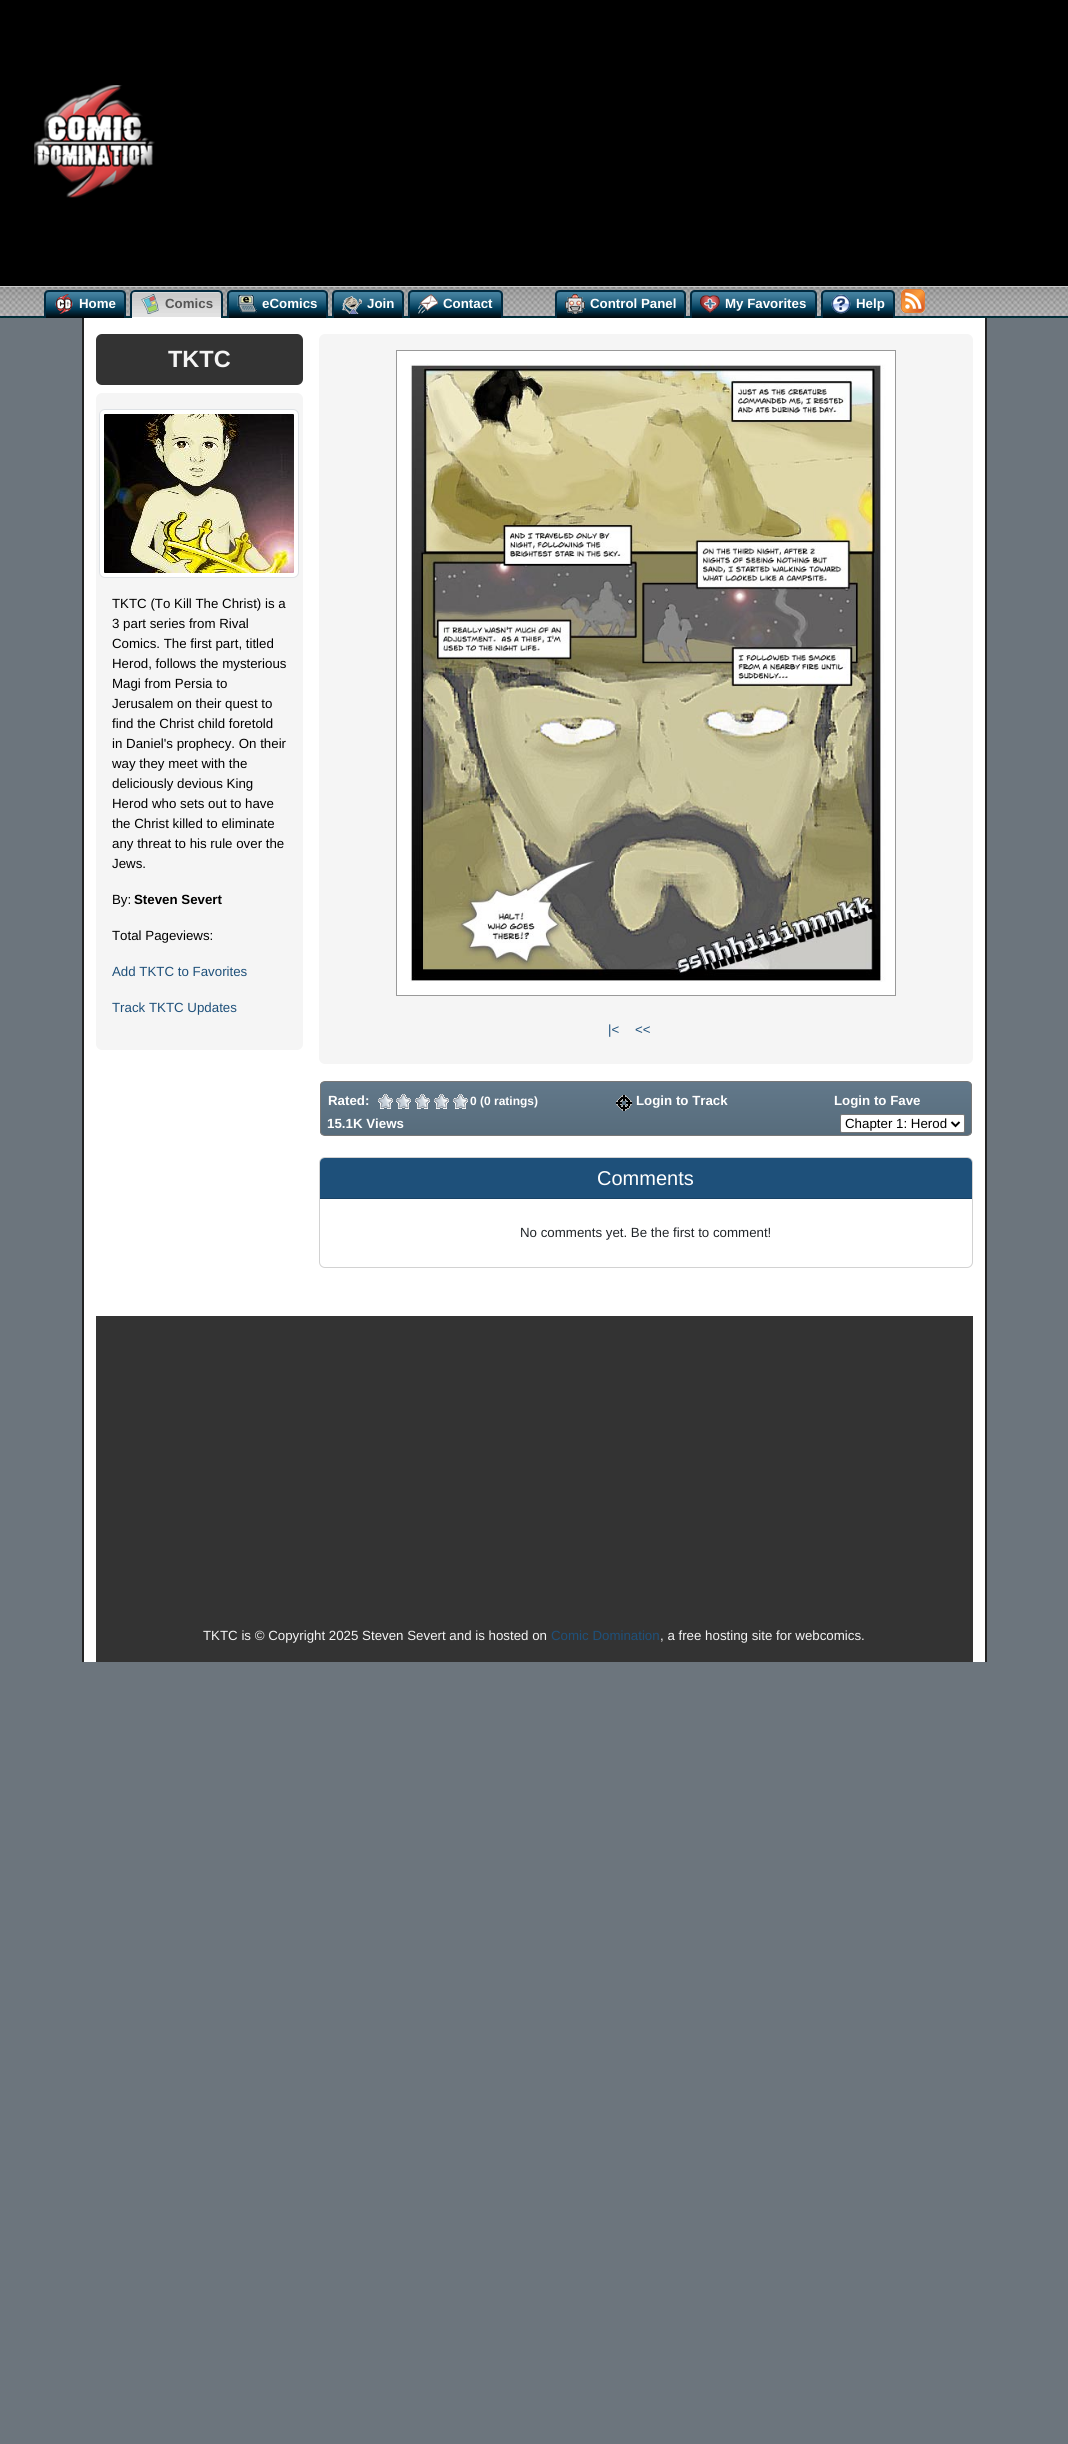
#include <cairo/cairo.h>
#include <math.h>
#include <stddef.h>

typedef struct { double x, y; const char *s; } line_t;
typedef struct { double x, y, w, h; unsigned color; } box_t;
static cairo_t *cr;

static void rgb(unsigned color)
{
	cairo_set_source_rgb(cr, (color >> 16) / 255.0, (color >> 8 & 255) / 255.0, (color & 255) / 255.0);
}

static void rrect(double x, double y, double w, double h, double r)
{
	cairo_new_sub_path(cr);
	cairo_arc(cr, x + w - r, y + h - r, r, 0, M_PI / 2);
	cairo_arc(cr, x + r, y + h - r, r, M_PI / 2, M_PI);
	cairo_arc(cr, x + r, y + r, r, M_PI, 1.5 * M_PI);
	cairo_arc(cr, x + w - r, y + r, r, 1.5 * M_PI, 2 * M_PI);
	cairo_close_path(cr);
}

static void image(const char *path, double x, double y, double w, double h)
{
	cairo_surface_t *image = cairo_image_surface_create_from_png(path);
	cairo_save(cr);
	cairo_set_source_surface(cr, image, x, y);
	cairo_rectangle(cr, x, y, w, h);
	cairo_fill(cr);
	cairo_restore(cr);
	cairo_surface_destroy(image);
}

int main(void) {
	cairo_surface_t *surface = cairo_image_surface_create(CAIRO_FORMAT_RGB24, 1068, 2444);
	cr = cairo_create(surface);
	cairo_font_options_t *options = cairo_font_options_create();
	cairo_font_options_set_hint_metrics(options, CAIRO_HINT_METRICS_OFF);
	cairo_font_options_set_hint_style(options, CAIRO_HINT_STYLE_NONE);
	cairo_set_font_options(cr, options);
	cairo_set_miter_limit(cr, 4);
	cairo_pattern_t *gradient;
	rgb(0x6c757d);
	cairo_paint(cr);
	rgb(0x000000);
	cairo_rectangle(cr, 0, 0, 1068, 286);
	cairo_fill(cr);
	rgb(0xcccccc);
	cairo_rectangle(cr, 0, 286, 1068, 1);
	cairo_fill(cr);
	image("img/1.png", 34, 85, 121, 113);
	image("img/2.png", 0, 287, 1068, 31);
	image("img/3.png", 44, 292, 82, 26);
	rgb(0x012a3f);
	cairo_set_fill_rule(cr, CAIRO_FILL_RULE_EVEN_ODD);
	cairo_new_path(cr);
	cairo_move_to(cr, 49, 290);
	cairo_line_to(cr, 121, 290);
	cairo_curve_to(cr, 124, 290, 126, 292, 126, 295);
	cairo_line_to(cr, 126, 318);
	cairo_line_to(cr, 44, 318);
	cairo_line_to(cr, 44, 295);
	cairo_curve_to(cr, 44, 292, 46, 290, 49, 290);
	cairo_close_path(cr);
	cairo_move_to(cr, 49, 292);
	cairo_line_to(cr, 121, 292);
	cairo_curve_to(cr, 123, 292, 124, 293, 124, 295);
	cairo_line_to(cr, 124, 318);
	cairo_line_to(cr, 46, 318);
	cairo_line_to(cr, 46, 295);
	cairo_curve_to(cr, 46, 293, 47, 292, 49, 292);
	cairo_close_path(cr);
	cairo_fill(cr);
	image("img/4.png", 55, 294, 18, 20);
	rgb(0xffffff);
	cairo_new_path(cr);
	cairo_move_to(cr, 135, 290);
	cairo_line_to(cr, 218, 290);
	cairo_curve_to(cr, 221, 290, 223, 292, 223, 295);
	cairo_line_to(cr, 223, 318);
	cairo_line_to(cr, 130, 318);
	cairo_line_to(cr, 130, 295);
	cairo_curve_to(cr, 130, 292, 132, 290, 135, 290);
	cairo_close_path(cr);
	cairo_fill(cr);
	image("img/5.png", 130, 292, 93, 25);
	rgb(0x012a3f);
	cairo_new_path(cr);
	cairo_move_to(cr, 135, 290);
	cairo_line_to(cr, 218, 290);
	cairo_curve_to(cr, 221, 290, 223, 292, 223, 295);
	cairo_line_to(cr, 223, 318);
	cairo_line_to(cr, 130, 318);
	cairo_line_to(cr, 130, 295);
	cairo_curve_to(cr, 130, 292, 132, 290, 135, 290);
	cairo_close_path(cr);
	cairo_move_to(cr, 135, 292);
	cairo_line_to(cr, 218, 292);
	cairo_curve_to(cr, 220, 292, 221, 293, 221, 295);
	cairo_line_to(cr, 221, 318);
	cairo_line_to(cr, 132, 318);
	cairo_line_to(cr, 132, 295);
	cairo_curve_to(cr, 132, 293, 133, 292, 135, 292);
	cairo_close_path(cr);
	cairo_fill(cr);
	image("img/6.png", 141, 294, 18, 20);
	image("img/7.png", 227, 292, 101, 26);
	cairo_new_path(cr);
	cairo_move_to(cr, 232, 290);
	cairo_line_to(cr, 323, 290);
	cairo_curve_to(cr, 326, 290, 328, 292, 328, 295);
	cairo_line_to(cr, 328, 318);
	cairo_line_to(cr, 227, 318);
	cairo_line_to(cr, 227, 295);
	cairo_curve_to(cr, 227, 292, 229, 290, 232, 290);
	cairo_close_path(cr);
	cairo_move_to(cr, 232, 292);
	cairo_line_to(cr, 323, 292);
	cairo_curve_to(cr, 325, 292, 326, 293, 326, 295);
	cairo_line_to(cr, 326, 318);
	cairo_line_to(cr, 229, 318);
	cairo_line_to(cr, 229, 295);
	cairo_curve_to(cr, 229, 293, 230, 292, 232, 292);
	cairo_close_path(cr);
	cairo_fill(cr);
	image("img/8.png", 237, 294, 20, 20);
	image("img/9.png", 332, 292, 72, 26);
	cairo_new_path(cr);
	cairo_move_to(cr, 337, 290);
	cairo_line_to(cr, 399, 290);
	cairo_curve_to(cr, 402, 290, 404, 292, 404, 295);
	cairo_line_to(cr, 404, 318);
	cairo_line_to(cr, 332, 318);
	cairo_line_to(cr, 332, 295);
	cairo_curve_to(cr, 332, 292, 334, 290, 337, 290);
	cairo_close_path(cr);
	cairo_move_to(cr, 337, 292);
	cairo_line_to(cr, 399, 292);
	cairo_curve_to(cr, 401, 292, 402, 293, 402, 295);
	cairo_line_to(cr, 402, 318);
	cairo_line_to(cr, 334, 318);
	cairo_line_to(cr, 334, 295);
	cairo_curve_to(cr, 334, 293, 335, 292, 337, 292);
	cairo_close_path(cr);
	cairo_fill(cr);
	image("img/10.png", 342, 296, 20, 18);
	image("img/11.png", 408, 292, 95, 26);
	cairo_new_path(cr);
	cairo_move_to(cr, 413, 290);
	cairo_line_to(cr, 498, 290);
	cairo_curve_to(cr, 501, 290, 503, 292, 503, 295);
	cairo_line_to(cr, 503, 318);
	cairo_line_to(cr, 408, 318);
	cairo_line_to(cr, 408, 295);
	cairo_curve_to(cr, 408, 292, 410, 290, 413, 290);
	cairo_close_path(cr);
	cairo_move_to(cr, 413, 292);
	cairo_line_to(cr, 498, 292);
	cairo_curve_to(cr, 500, 292, 501, 293, 501, 295);
	cairo_line_to(cr, 501, 318);
	cairo_line_to(cr, 410, 318);
	cairo_line_to(cr, 410, 295);
	cairo_curve_to(cr, 410, 293, 411, 292, 413, 292);
	cairo_close_path(cr);
	cairo_fill(cr);
	image("img/12.png", 418, 294, 20, 20);
	image("img/13.png", 555, 292, 131, 26);
	cairo_new_path(cr);
	cairo_move_to(cr, 560, 290);
	cairo_line_to(cr, 681, 290);
	cairo_curve_to(cr, 684, 290, 686, 292, 686, 295);
	cairo_line_to(cr, 686, 318);
	cairo_line_to(cr, 555, 318);
	cairo_line_to(cr, 555, 295);
	cairo_curve_to(cr, 555, 292, 557, 290, 560, 290);
	cairo_close_path(cr);
	cairo_move_to(cr, 560, 292);
	cairo_line_to(cr, 681, 292);
	cairo_curve_to(cr, 683, 292, 684, 293, 684, 295);
	cairo_line_to(cr, 684, 318);
	cairo_line_to(cr, 557, 318);
	cairo_line_to(cr, 557, 295);
	cairo_curve_to(cr, 557, 293, 558, 292, 560, 292);
	cairo_close_path(cr);
	cairo_fill(cr);
	image("img/14.png", 565, 294, 20, 20);
	image("img/15.png", 690, 292, 127, 26);
	cairo_new_path(cr);
	cairo_move_to(cr, 695, 290);
	cairo_line_to(cr, 812, 290);
	cairo_curve_to(cr, 815, 290, 817, 292, 817, 295);
	cairo_line_to(cr, 817, 318);
	cairo_line_to(cr, 690, 318);
	cairo_line_to(cr, 690, 295);
	cairo_curve_to(cr, 690, 292, 692, 290, 695, 290);
	cairo_close_path(cr);
	cairo_move_to(cr, 695, 292);
	cairo_line_to(cr, 812, 292);
	cairo_curve_to(cr, 814, 292, 815, 293, 815, 295);
	cairo_line_to(cr, 815, 318);
	cairo_line_to(cr, 692, 318);
	cairo_line_to(cr, 692, 295);
	cairo_curve_to(cr, 692, 293, 693, 292, 695, 292);
	cairo_close_path(cr);
	cairo_fill(cr);
	image("img/16.png", 700, 295, 20, 18);
	image("img/17.png", 821, 292, 74, 26);
	cairo_new_path(cr);
	cairo_move_to(cr, 826, 290);
	cairo_line_to(cr, 890, 290);
	cairo_curve_to(cr, 893, 290, 895, 292, 895, 295);
	cairo_line_to(cr, 895, 318);
	cairo_line_to(cr, 821, 318);
	cairo_line_to(cr, 821, 295);
	cairo_curve_to(cr, 821, 292, 823, 290, 826, 290);
	cairo_close_path(cr);
	cairo_move_to(cr, 826, 292);
	cairo_line_to(cr, 890, 292);
	cairo_curve_to(cr, 892, 292, 893, 293, 893, 295);
	cairo_line_to(cr, 893, 318);
	cairo_line_to(cr, 823, 318);
	cairo_line_to(cr, 823, 295);
	cairo_curve_to(cr, 823, 293, 824, 292, 826, 292);
	cairo_close_path(cr);
	cairo_fill(cr);
	image("img/18.png", 831, 294, 20, 20);
	image("img/19.png", 901, 289, 24, 24);
	{
		static const box_t items[] = {
			{84, 318, 901, 1344, 0xffffff},
			{985, 318, 2, 1344, 0x222222},
			{82, 318, 2, 1344, 0x222222},
		};
		for (size_t i = 0; i < sizeof items / sizeof *items; i++) {
			rgb(items[i].color);
			cairo_rectangle(cr, items[i].x, items[i].y, items[i].w, items[i].h);
			cairo_fill(cr);
		}
	}
	rgb(0x333333);
	rrect(96, 334, 207, 51, 6);
	cairo_fill(cr);
	rgb(0xf5f5f5);
	rrect(96, 393, 207, 657, 6);
	cairo_fill(cr);
	rgb(0xffffff);
	rrect(99.5, 409.5, 199, 168, 5.5);
	cairo_fill_preserve(cr);
	rgb(0xdee2e6);
	cairo_set_line_width(cr, 1);
	cairo_stroke(cr);
	image("img/20.png", 104, 414, 190, 159);
	rgb(0xf5f5f5);
	rrect(319, 334, 654, 730, 6);
	cairo_fill(cr);
	cairo_rectangle(cr, 396.5, 350.5, 499, 645);
	rgb(0x999999);
	cairo_stroke(cr);
	image("img/21.png", 397, 351, 498, 644);
	cairo_save(cr);
	cairo_set_fill_rule(cr, CAIRO_FILL_RULE_WINDING);
	rrect(320, 1081, 652, 55, 5);
	cairo_clip(cr);
	gradient = cairo_pattern_create_linear(646, 1082, 646, 1135);
	cairo_pattern_add_color_stop_rgba(gradient, 0, 0.384, 0.471, 0.541, 1);
	cairo_pattern_add_color_stop_rgba(gradient, 1, 0.341, 0.424, 0.486, 1);
	cairo_set_source(cr, gradient);
	cairo_pattern_destroy(gradient);
	cairo_rectangle(cr, 320, 1082, 652, 53);
	cairo_fill(cr);
	cairo_restore(cr);
	rrect(320.5, 1081.5, 651, 54, 4.5);
	rgb(0x777777);
	cairo_stroke(cr);
	image("img/22.png", 378, 1094, 15, 15);
	image("img/22.png", 396, 1094, 15, 15);
	image("img/22.png", 415, 1094, 15, 15);
	image("img/22.png", 434, 1094, 15, 15);
	image("img/22.png", 453, 1094, 15, 15);
	image("img/23.png", 616, 1095, 16, 16);
	rgb(0xffffff);
	rrect(840.5, 1114.5, 124, 18, 1.5);
	cairo_fill_preserve(cr);
	rgb(0x767676);
	cairo_stroke(cr);
	cairo_new_path(cr);
	cairo_move_to(cr, 951.5, 1122);
	cairo_line_to(cr, 955.5, 1126);
	cairo_line_to(cr, 959.5, 1122);
	rgb(0x000000);
	cairo_set_line_width(cr, 2);
	cairo_stroke(cr);
	rrect(319.5, 1157.5, 653, 110, 5.5);
	rgb(0xd2d2d2);
	cairo_set_line_width(cr, 1);
	cairo_stroke(cr);
	rgb(0x1e507a);
	cairo_new_path(cr);
	cairo_move_to(cr, 325, 1158);
	cairo_line_to(cr, 967, 1158);
	cairo_curve_to(cr, 970, 1158, 972, 1160, 972, 1163);
	cairo_line_to(cr, 972, 1199);
	cairo_line_to(cr, 320, 1199);
	cairo_line_to(cr, 320, 1163);
	cairo_curve_to(cr, 320, 1160, 322, 1158, 325, 1158);
	cairo_close_path(cr);
	cairo_fill(cr);
	rgb(0x194265);
	cairo_rectangle(cr, 320, 1198, 652, 1);
	cairo_fill(cr);
	rgb(0x333333);
	cairo_rectangle(cr, 96, 1316, 877, 346);
	cairo_fill(cr);
	cairo_select_font_face(cr, "Liberation Sans", CAIRO_FONT_SLANT_NORMAL, CAIRO_FONT_WEIGHT_BOLD);
	cairo_set_font_size(cr, 13.3);
	rgb(0xffffff);
	cairo_move_to(cr, 79, 308);
	cairo_show_text(cr, "Home");
	rgb(0x555555);
	cairo_move_to(cr, 165, 308);
	cairo_show_text(cr, "Comics");
	rgb(0xffffff);
	{
		static const line_t items[] = {
			{262, 308, "eComics"},
			{367, 308, "Join"},
			{443, 308, "Contact"},
			{590, 308, "Control Panel"},
			{725, 308, "My Favorites"},
			{856, 308, "Help"},
		};
		for (size_t i = 0; i < sizeof items / sizeof *items; i++) {
			cairo_move_to(cr, items[i].x, items[i].y);
			cairo_show_text(cr, items[i].s);
		}
	}
	cairo_set_font_size(cr, 23.5);
	rgb(0xf5f5f5);
	cairo_move_to(cr, 168, 367);
	cairo_show_text(cr, "TKTC");
	cairo_select_font_face(cr, "Liberation Sans", CAIRO_FONT_SLANT_NORMAL, CAIRO_FONT_WEIGHT_NORMAL);
	cairo_set_font_size(cr, 13.3);
	rgb(0x000000);
	{
		static const line_t items[] = {
			{112, 608, "TKTC (To Kill The Christ) is a"},
			{112, 628, "3 part series from Rival"},
			{112, 648, "Comics. The first part, titled"},
			{112, 668, "Herod, follows the mysterious"},
			{112, 688, "Magi from Persia to"},
			{112, 708, "Jerusalem on their quest to"},
			{112, 728, "find the Christ child foretold"},
			{112, 748, "in Daniel's prophecy. On their"},
			{112, 768, "way they meet with the"},
			{112, 788, "deliciously devious King"},
			{112, 808, "Herod who sets out to have"},
			{112, 828, "the Christ killed to eliminate"},
			{112, 848, "any threat to his rule over the"},
			{112, 868, "Jews."},
			{112, 904, "By:"},
		};
		for (size_t i = 0; i < sizeof items / sizeof *items; i++) {
			cairo_move_to(cr, items[i].x, items[i].y);
			cairo_show_text(cr, items[i].s);
		}
	}
	cairo_select_font_face(cr, "Liberation Sans", CAIRO_FONT_SLANT_NORMAL, CAIRO_FONT_WEIGHT_BOLD);
	cairo_move_to(cr, 134, 904);
	cairo_show_text(cr, "Steven Severt");
	cairo_select_font_face(cr, "Liberation Sans", CAIRO_FONT_SLANT_NORMAL, CAIRO_FONT_WEIGHT_NORMAL);
	cairo_move_to(cr, 112, 940);
	cairo_show_text(cr, "Total Pageviews:");
	rgb(0x1e507a);
	{
		static const line_t items[] = {
			{112, 976, "Add TKTC to Favorites"},
			{112, 1012, "Track TKTC Updates"},
			{608, 1034, "|<"},
			{635, 1034, "<<"},
		};
		for (size_t i = 0; i < sizeof items / sizeof *items; i++) {
			cairo_move_to(cr, items[i].x, items[i].y);
			cairo_show_text(cr, items[i].s);
		}
	}
	cairo_select_font_face(cr, "Liberation Sans", CAIRO_FONT_SLANT_NORMAL, CAIRO_FONT_WEIGHT_BOLD);
	rgb(0xffffff);
	cairo_move_to(cr, 328, 1105);
	cairo_show_text(cr, "Rated:");
	cairo_set_font_size(cr, 12);
	cairo_move_to(cr, 470, 1105);
	cairo_show_text(cr, "0 (0 ratings)");
	cairo_set_font_size(cr, 13.3);
	{
		static const line_t items[] = {
			{636, 1105, "Login to Track"},
			{834, 1105, "Login to Fave"},
			{327, 1128, "15.1K Views"},
		};
		for (size_t i = 0; i < sizeof items / sizeof *items; i++) {
			cairo_move_to(cr, items[i].x, items[i].y);
			cairo_show_text(cr, items[i].s);
		}
	}
	cairo_select_font_face(cr, "Liberation Sans", CAIRO_FONT_SLANT_NORMAL, CAIRO_FONT_WEIGHT_NORMAL);
	rgb(0x000000);
	cairo_move_to(cr, 845, 1128);
	cairo_show_text(cr, "Chapter 1: Herod");
	cairo_set_font_size(cr, 20);
	rgb(0xffffff);
	cairo_move_to(cr, 597, 1185);
	cairo_show_text(cr, "Comments");
	cairo_set_font_size(cr, 13.3);
	rgb(0x212529);
	cairo_move_to(cr, 520, 1237);
	cairo_show_text(cr, "No comments yet. Be the first to comment!");
	rgb(0xf5f5f5);
	cairo_move_to(cr, 203, 1640);
	cairo_show_text(cr, "TKTC is © Copyright 2025 Steven Severt and is hosted on");
	rgb(0x1e507a);
	cairo_move_to(cr, 551, 1640);
	cairo_show_text(cr, "Comic Domination");
	rgb(0xf5f5f5);
	cairo_move_to(cr, 660, 1640);
	cairo_show_text(cr, ", a free hosting site for webcomics.");
	cairo_surface_write_to_png(surface, "page.png");
	cairo_font_options_destroy(options);
	cairo_destroy(cr);
	cairo_surface_destroy(surface);
	return 0;
}
